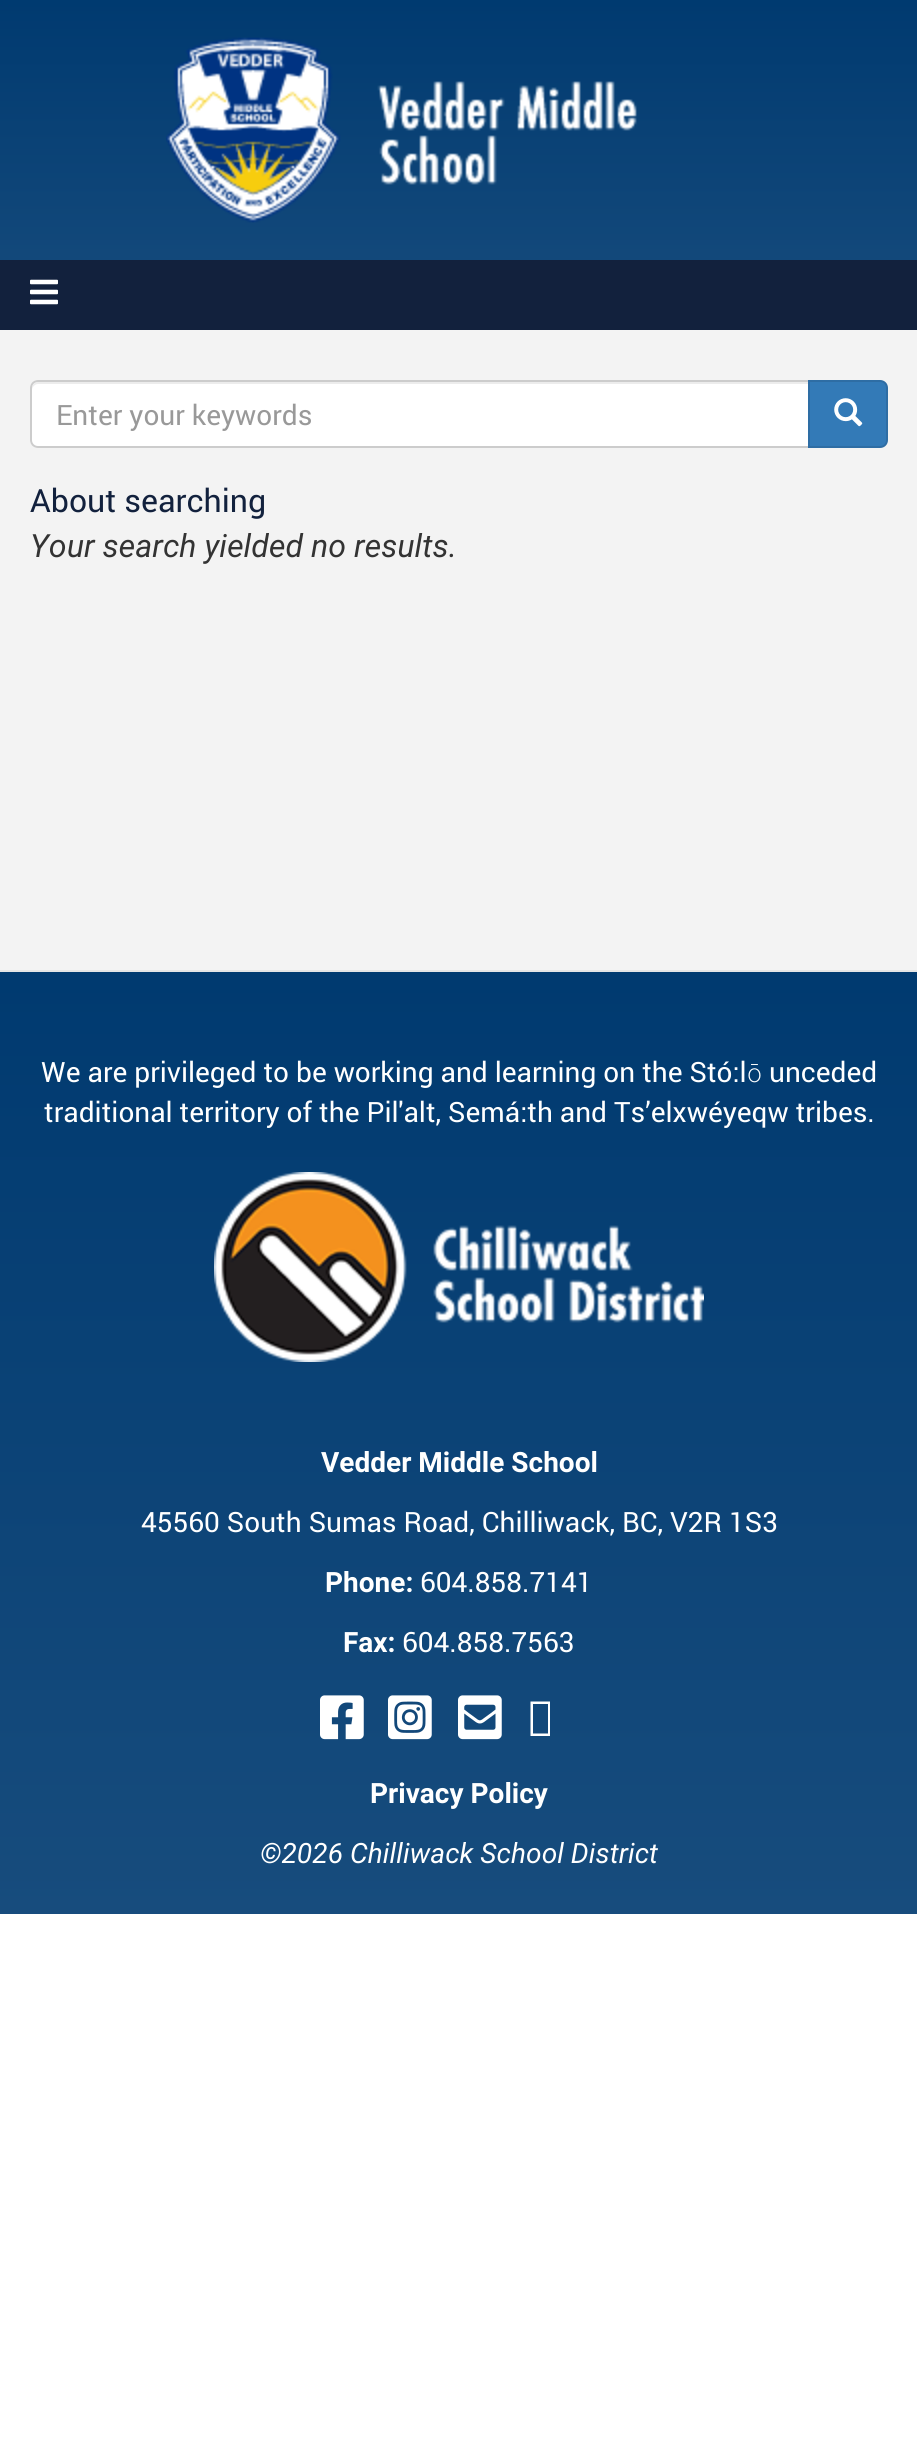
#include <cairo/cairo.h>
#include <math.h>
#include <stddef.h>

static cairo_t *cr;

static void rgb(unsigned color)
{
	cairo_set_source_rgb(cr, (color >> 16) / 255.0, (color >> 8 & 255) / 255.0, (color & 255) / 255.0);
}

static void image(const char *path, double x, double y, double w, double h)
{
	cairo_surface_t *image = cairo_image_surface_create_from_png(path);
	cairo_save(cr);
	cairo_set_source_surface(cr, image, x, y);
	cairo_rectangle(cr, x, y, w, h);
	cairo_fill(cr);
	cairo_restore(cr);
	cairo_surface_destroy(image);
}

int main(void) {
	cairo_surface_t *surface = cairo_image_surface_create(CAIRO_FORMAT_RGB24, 917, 2446);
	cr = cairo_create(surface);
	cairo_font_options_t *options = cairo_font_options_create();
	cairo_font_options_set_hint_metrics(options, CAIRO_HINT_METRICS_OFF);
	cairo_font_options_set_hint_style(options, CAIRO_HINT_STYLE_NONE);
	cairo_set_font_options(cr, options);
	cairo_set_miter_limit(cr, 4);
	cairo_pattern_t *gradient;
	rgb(0xffffff);
	cairo_paint(cr);
	gradient = cairo_pattern_create_linear(459, 0, 459, 326);
	cairo_pattern_add_color_stop_rgba(gradient, 0, 0, 0.227, 0.439, 1);
	cairo_pattern_add_color_stop_rgba(gradient, 1, 0.09, 0.298, 0.49, 1);
	cairo_set_source(cr, gradient);
	cairo_pattern_destroy(gradient);
	cairo_rectangle(cr, 0, 0, 917, 260);
	cairo_fill(cr);
	rgb(0x12213d);
	cairo_rectangle(cr, 0, 260, 917, 70);
	cairo_fill(cr);
	image("img/1.png", 166, 37, 471, 186);
	image("img/2.png", 30, 279, 28, 26);
	rgb(0xf3f3f3);
	cairo_rectangle(cr, 0, 330, 917, 640);
	cairo_fill(cr);
	rgb(0xffffff);
	cairo_new_path(cr);
	cairo_move_to(cr, 38, 380);
	cairo_line_to(cr, 810, 380);
	cairo_line_to(cr, 810, 448);
	cairo_line_to(cr, 38, 448);
	cairo_curve_to(cr, 33.5, 448, 30, 444.5, 30, 440);
	cairo_line_to(cr, 30, 388);
	cairo_curve_to(cr, 30, 383.5, 33.5, 380, 38, 380);
	cairo_close_path(cr);
	cairo_fill(cr);
	rgb(0xececec);
	cairo_new_path(cr);
	cairo_move_to(cr, 38, 384);
	cairo_line_to(cr, 808, 384);
	cairo_line_to(cr, 808, 382);
	cairo_line_to(cr, 38, 382);
	cairo_curve_to(cr, 35, 382, 32, 385, 32, 388);
	cairo_line_to(cr, 32, 390);
	cairo_curve_to(cr, 32, 387, 35, 384, 38, 384);
	cairo_close_path(cr);
	cairo_fill(cr);
	cairo_new_path(cr);
	cairo_move_to(cr, 38, 381);
	cairo_line_to(cr, 809, 381);
	cairo_line_to(cr, 809, 447);
	cairo_line_to(cr, 38, 447);
	cairo_curve_to(cr, 34, 447, 31, 444, 31, 440);
	cairo_line_to(cr, 31, 388);
	cairo_curve_to(cr, 31, 384, 34, 381, 38, 381);
	cairo_close_path(cr);
	rgb(0xcccccc);
	cairo_stroke(cr);
	rgb(0x337ab7);
	cairo_new_path(cr);
	cairo_move_to(cr, 809, 381);
	cairo_line_to(cr, 880, 381);
	cairo_curve_to(cr, 884, 381, 887, 384, 887, 388);
	cairo_line_to(cr, 887, 440);
	cairo_curve_to(cr, 887, 444, 884, 447, 880, 447);
	cairo_line_to(cr, 809, 447);
	cairo_close_path(cr);
	cairo_fill_preserve(cr);
	rgb(0x2e6da4);
	cairo_stroke(cr);
	image("img/3.png", 834, 398, 29, 29);
	rgb(0xe5e5e5);
	cairo_rectangle(cr, 0, 970, 917, 2);
	cairo_fill(cr);
	gradient = cairo_pattern_create_linear(459, 972, 459, 1914);
	cairo_pattern_add_color_stop_rgba(gradient, 0, 0, 0.227, 0.439, 1);
	cairo_pattern_add_color_stop_rgba(gradient, 1, 0.09, 0.298, 0.49, 1);
	cairo_set_source(cr, gradient);
	cairo_pattern_destroy(gradient);
	cairo_rectangle(cr, 0, 972, 917, 942);
	cairo_fill(cr);
	image("img/4.png", 214, 1172, 490, 190);
	image("img/5.png", 320, 1695, 44, 45);
	image("img/6.png", 388, 1695, 44, 45);
	image("img/7.png", 458, 1695, 44, 45);
	rgb(0xffffff);
	cairo_new_path(cr);
	cairo_move_to(cr, 530.5, 1736);
	cairo_line_to(cr, 530.5, 1701.5);
	cairo_line_to(cr, 550, 1701.5);
	cairo_line_to(cr, 550, 1736);
	cairo_close_path(cr);
	cairo_move_to(cr, 533, 1733.5);
	cairo_line_to(cr, 548, 1733.5);
	cairo_line_to(cr, 548, 1704);
	cairo_line_to(cr, 533, 1704);
	cairo_close_path(cr);
	cairo_fill(cr);
	cairo_select_font_face(cr, "Roboto", CAIRO_FONT_SLANT_NORMAL, CAIRO_FONT_WEIGHT_NORMAL);
	cairo_set_font_size(cr, 28);
	rgb(0x999999);
	cairo_move_to(cr, 56, 425);
	cairo_show_text(cr, "Enter your keywords");
	cairo_set_font_size(cr, 32);
	rgb(0x12213d);
	cairo_move_to(cr, 30, 512);
	cairo_show_text(cr, "About searching");
	cairo_select_font_face(cr, "Roboto", CAIRO_FONT_SLANT_ITALIC, CAIRO_FONT_WEIGHT_NORMAL);
	rgb(0x333333);
	cairo_move_to(cr, 30, 557);
	cairo_show_text(cr, "Your search yielded no results.");
	cairo_select_font_face(cr, "Roboto", CAIRO_FONT_SLANT_NORMAL, CAIRO_FONT_WEIGHT_NORMAL);
	cairo_set_font_size(cr, 28);
	rgb(0xffffff);
	cairo_move_to(cr, 41, 1082);
	cairo_show_text(cr, "We are privileged to be working and learning on the Stó:l");
	cairo_select_font_face(cr, "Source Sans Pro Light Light", CAIRO_FONT_SLANT_NORMAL, CAIRO_FONT_WEIGHT_NORMAL);
	cairo_move_to(cr, 747, 1082);
	cairo_show_text(cr, "ō");
	cairo_select_font_face(cr, "Roboto", CAIRO_FONT_SLANT_NORMAL, CAIRO_FONT_WEIGHT_NORMAL);
	cairo_move_to(cr, 769, 1082);
	cairo_show_text(cr, "unceded");
	cairo_move_to(cr, 44, 1122);
	cairo_show_text(cr, "traditional territory of the Pil'alt, Semá:th and Ts’elxwéyeqw tribes.");
	cairo_select_font_face(cr, "Roboto", CAIRO_FONT_SLANT_NORMAL, CAIRO_FONT_WEIGHT_BOLD);
	cairo_move_to(cr, 321, 1472);
	cairo_show_text(cr, "Vedder Middle School");
	cairo_select_font_face(cr, "Roboto", CAIRO_FONT_SLANT_NORMAL, CAIRO_FONT_WEIGHT_NORMAL);
	cairo_move_to(cr, 141, 1532);
	cairo_show_text(cr, "45560 South Sumas Road, Chilliwack, BC, V2R 1S3");
	cairo_select_font_face(cr, "Roboto", CAIRO_FONT_SLANT_NORMAL, CAIRO_FONT_WEIGHT_BOLD);
	cairo_move_to(cr, 325, 1592);
	cairo_show_text(cr, "Phone:");
	cairo_select_font_face(cr, "Roboto", CAIRO_FONT_SLANT_NORMAL, CAIRO_FONT_WEIGHT_NORMAL);
	cairo_move_to(cr, 420, 1592);
	cairo_show_text(cr, "604.858.7141");
	cairo_select_font_face(cr, "Roboto", CAIRO_FONT_SLANT_NORMAL, CAIRO_FONT_WEIGHT_BOLD);
	cairo_move_to(cr, 343, 1652);
	cairo_show_text(cr, "Fax:");
	cairo_select_font_face(cr, "Roboto", CAIRO_FONT_SLANT_NORMAL, CAIRO_FONT_WEIGHT_NORMAL);
	cairo_move_to(cr, 402, 1652);
	cairo_show_text(cr, "604.858.7563");
	cairo_select_font_face(cr, "Roboto", CAIRO_FONT_SLANT_NORMAL, CAIRO_FONT_WEIGHT_BOLD);
	cairo_move_to(cr, 370, 1803);
	cairo_show_text(cr, "Privacy Policy");
	cairo_select_font_face(cr, "Roboto", CAIRO_FONT_SLANT_ITALIC, CAIRO_FONT_WEIGHT_NORMAL);
	cairo_move_to(cr, 260, 1863);
	cairo_show_text(cr, "©2026 Chilliwack School District");
	cairo_surface_write_to_png(surface, "page.png");
	cairo_font_options_destroy(options);
	cairo_destroy(cr);
	cairo_surface_destroy(surface);
	return 0;
}
